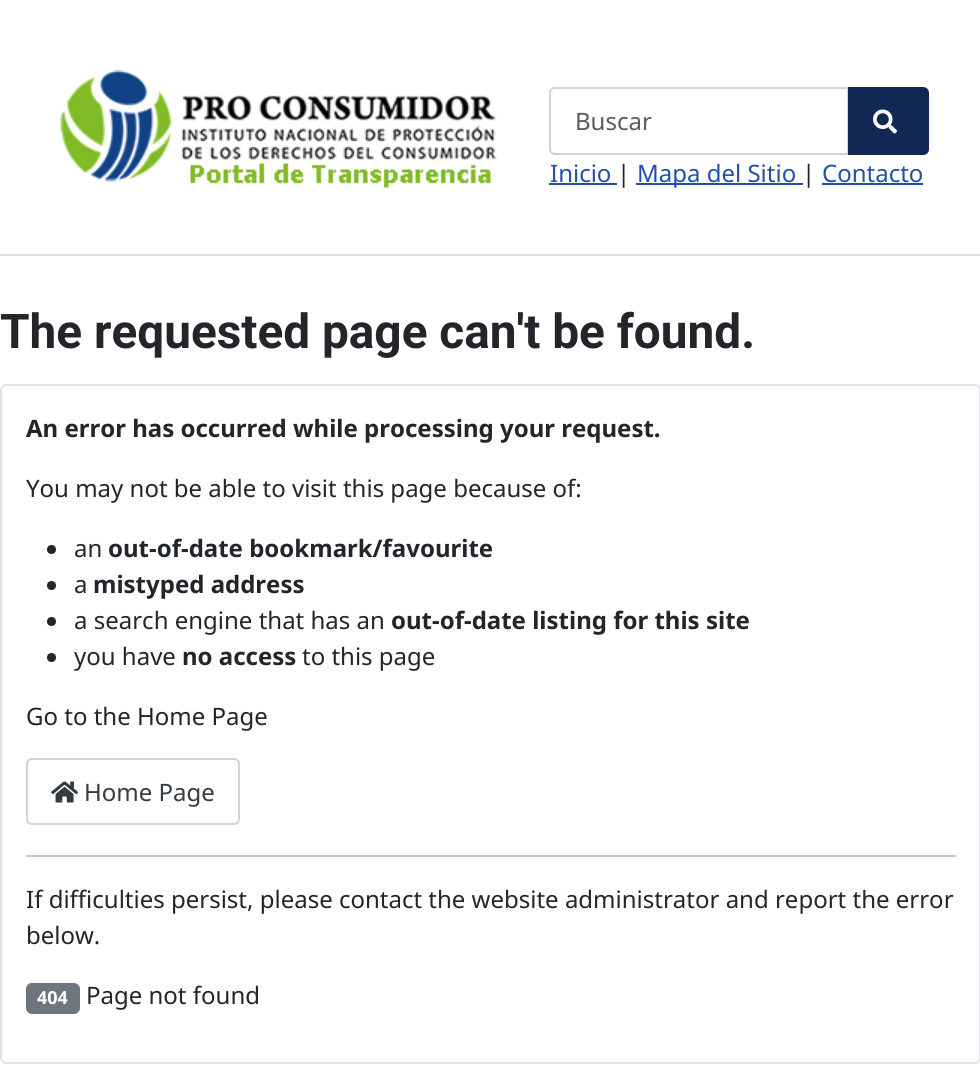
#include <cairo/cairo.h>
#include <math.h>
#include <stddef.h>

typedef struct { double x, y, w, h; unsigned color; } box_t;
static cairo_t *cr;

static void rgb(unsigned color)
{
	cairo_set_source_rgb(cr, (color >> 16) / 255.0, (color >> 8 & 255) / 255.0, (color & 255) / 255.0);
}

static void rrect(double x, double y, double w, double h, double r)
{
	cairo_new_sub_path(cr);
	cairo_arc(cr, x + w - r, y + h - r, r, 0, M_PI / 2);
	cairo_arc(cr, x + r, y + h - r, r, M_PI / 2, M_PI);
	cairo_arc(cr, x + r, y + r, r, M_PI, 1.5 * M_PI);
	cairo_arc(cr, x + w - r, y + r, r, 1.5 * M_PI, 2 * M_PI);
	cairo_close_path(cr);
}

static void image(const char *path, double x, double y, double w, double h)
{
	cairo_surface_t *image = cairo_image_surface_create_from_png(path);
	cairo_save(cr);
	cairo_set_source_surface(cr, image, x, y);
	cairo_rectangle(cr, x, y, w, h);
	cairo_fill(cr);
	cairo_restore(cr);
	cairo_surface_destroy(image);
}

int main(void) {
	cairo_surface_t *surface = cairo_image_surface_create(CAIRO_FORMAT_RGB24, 980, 1077);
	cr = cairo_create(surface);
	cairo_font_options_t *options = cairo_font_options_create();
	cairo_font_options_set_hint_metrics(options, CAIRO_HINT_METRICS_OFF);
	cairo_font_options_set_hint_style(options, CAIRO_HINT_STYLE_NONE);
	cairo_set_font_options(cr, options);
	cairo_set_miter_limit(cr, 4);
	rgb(0xffffff);
	cairo_paint(cr);
	rgb(0xdddddd);
	cairo_rectangle(cr, 0, 254, 980, 2);
	cairo_fill(cr);
	image("img/1.png", 59, 69, 438, 119);
	cairo_new_path(cr);
	cairo_move_to(cr, 555, 88);
	cairo_line_to(cr, 848, 88);
	cairo_line_to(cr, 848, 154);
	cairo_line_to(cr, 555, 154);
	cairo_curve_to(cr, 552, 154, 550, 152, 550, 149);
	cairo_line_to(cr, 550, 93);
	cairo_curve_to(cr, 550, 90, 552, 88, 555, 88);
	cairo_close_path(cr);
	rgb(0xced4da);
	cairo_stroke(cr);
	rgb(0x112855);
	cairo_new_path(cr);
	cairo_move_to(cr, 849, 88);
	cairo_line_to(cr, 923, 88);
	cairo_curve_to(cr, 926, 88, 928, 90, 928, 93);
	cairo_line_to(cr, 928, 149);
	cairo_curve_to(cr, 928, 152, 926, 154, 923, 154);
	cairo_line_to(cr, 849, 154);
	cairo_close_path(cr);
	cairo_fill_preserve(cr);
	cairo_stroke(cr);
	image("img/2.png", 873, 109, 24, 25);
	{
		static const box_t items[] = {
			{549, 183, 68, 2, 0x224faa},
			{636, 183, 167, 2, 0x224faa},
			{822, 183, 101, 2, 0x224faa},
		};
		for (size_t i = 0; i < sizeof items / sizeof *items; i++) {
			rgb(items[i].color);
			cairo_rectangle(cr, items[i].x, items[i].y, items[i].w, items[i].h);
			cairo_fill(cr);
		}
	}
	rrect(1, 385, 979, 678, 5);
	rgb(0xdfe3e7);
	cairo_stroke(cr);
	rgb(0x22262a);
	cairo_arc(cr, 51.5, 549.5, 4.5, 0, 2 * M_PI);
	cairo_fill(cr);
	cairo_arc(cr, 51.5, 585.5, 4.5, 0, 2 * M_PI);
	cairo_fill(cr);
	cairo_arc(cr, 51.5, 621.5, 4.5, 0, 2 * M_PI);
	cairo_fill(cr);
	cairo_arc(cr, 51.5, 657.5, 4.5, 0, 2 * M_PI);
	cairo_fill(cr);
	rrect(27, 759, 212, 65, 5);
	rgb(0xced4da);
	cairo_stroke(cr);
	image("img/3.png", 51, 781, 27, 22);
	rgb(0xc8c9ca);
	cairo_rectangle(cr, 26, 855, 930, 2);
	cairo_fill(cr);
	rgb(0x6d757e);
	rrect(26, 983, 54, 31, 6);
	cairo_fill(cr);
	cairo_select_font_face(cr, "Noto Sans", CAIRO_FONT_SLANT_NORMAL, CAIRO_FONT_WEIGHT_NORMAL);
	cairo_set_font_size(cr, 24);
	rgb(0x595c5f);
	cairo_move_to(cr, 575, 130);
	cairo_show_text(cr, "Buscar");
	rgb(0x224faa);
	cairo_move_to(cr, 550, 182);
	cairo_show_text(cr, "Inicio");
	rgb(0x22262a);
	cairo_move_to(cr, 617, 182);
	cairo_show_text(cr, "|");
	rgb(0x224faa);
	cairo_move_to(cr, 637, 182);
	cairo_show_text(cr, "Mapa del Sitio");
	rgb(0x22262a);
	cairo_move_to(cr, 802, 182);
	cairo_show_text(cr, "|");
	rgb(0x224faa);
	cairo_move_to(cr, 822, 182);
	cairo_show_text(cr, "Contacto");
	cairo_select_font_face(cr, "Roboto", CAIRO_FONT_SLANT_NORMAL, CAIRO_FONT_WEIGHT_BOLD);
	cairo_set_font_size(cr, 47.75);
	rgb(0x22262a);
	cairo_move_to(cr, 0, 348);
	cairo_show_text(cr, "The requested page can't be found.");
	cairo_select_font_face(cr, "Noto Sans", CAIRO_FONT_SLANT_NORMAL, CAIRO_FONT_WEIGHT_BOLD);
	cairo_set_font_size(cr, 24);
	cairo_move_to(cr, 26, 437);
	cairo_show_text(cr, "An error has occurred while processing your request.");
	cairo_select_font_face(cr, "Noto Sans", CAIRO_FONT_SLANT_NORMAL, CAIRO_FONT_WEIGHT_NORMAL);
	cairo_move_to(cr, 26, 497);
	cairo_show_text(cr, "You may not be able to visit this page because of:");
	cairo_move_to(cr, 74, 557);
	cairo_show_text(cr, "an");
	cairo_select_font_face(cr, "Noto Sans", CAIRO_FONT_SLANT_NORMAL, CAIRO_FONT_WEIGHT_BOLD);
	cairo_move_to(cr, 108, 557);
	cairo_show_text(cr, "out-of-date bookmark/favourite");
	cairo_select_font_face(cr, "Noto Sans", CAIRO_FONT_SLANT_NORMAL, CAIRO_FONT_WEIGHT_NORMAL);
	cairo_move_to(cr, 74, 593);
	cairo_show_text(cr, "a");
	cairo_select_font_face(cr, "Noto Sans", CAIRO_FONT_SLANT_NORMAL, CAIRO_FONT_WEIGHT_BOLD);
	cairo_move_to(cr, 93, 593);
	cairo_show_text(cr, "mistyped address");
	cairo_select_font_face(cr, "Noto Sans", CAIRO_FONT_SLANT_NORMAL, CAIRO_FONT_WEIGHT_NORMAL);
	cairo_move_to(cr, 74, 629);
	cairo_show_text(cr, "a search engine that has an");
	cairo_select_font_face(cr, "Noto Sans", CAIRO_FONT_SLANT_NORMAL, CAIRO_FONT_WEIGHT_BOLD);
	cairo_move_to(cr, 391, 629);
	cairo_show_text(cr, "out-of-date listing for this site");
	cairo_select_font_face(cr, "Noto Sans", CAIRO_FONT_SLANT_NORMAL, CAIRO_FONT_WEIGHT_NORMAL);
	cairo_move_to(cr, 74, 665);
	cairo_show_text(cr, "you have");
	cairo_select_font_face(cr, "Noto Sans", CAIRO_FONT_SLANT_NORMAL, CAIRO_FONT_WEIGHT_BOLD);
	cairo_move_to(cr, 182, 665);
	cairo_show_text(cr, "no access");
	cairo_select_font_face(cr, "Noto Sans", CAIRO_FONT_SLANT_NORMAL, CAIRO_FONT_WEIGHT_NORMAL);
	cairo_move_to(cr, 302, 665);
	cairo_show_text(cr, "to this page");
	cairo_move_to(cr, 26, 725);
	cairo_show_text(cr, "Go to the Home Page");
	rgb(0x353b41);
	cairo_move_to(cr, 84, 801);
	cairo_show_text(cr, "Home Page");
	rgb(0x22262a);
	cairo_move_to(cr, 26, 908);
	cairo_show_text(cr, "If difficulties persist, please contact the website administrator and report the error");
	cairo_move_to(cr, 26, 944);
	cairo_show_text(cr, "below.");
	cairo_select_font_face(cr, "Noto Sans", CAIRO_FONT_SLANT_NORMAL, CAIRO_FONT_WEIGHT_BOLD);
	cairo_set_font_size(cr, 18);
	rgb(0xffffff);
	cairo_move_to(cr, 37, 1004);
	cairo_show_text(cr, "404");
	cairo_select_font_face(cr, "Noto Sans", CAIRO_FONT_SLANT_NORMAL, CAIRO_FONT_WEIGHT_NORMAL);
	cairo_set_font_size(cr, 24);
	rgb(0x22262a);
	cairo_move_to(cr, 86, 1004);
	cairo_show_text(cr, "Page not found");
	cairo_surface_write_to_png(surface, "page.png");
	cairo_font_options_destroy(options);
	cairo_destroy(cr);
	cairo_surface_destroy(surface);
	return 0;
}
